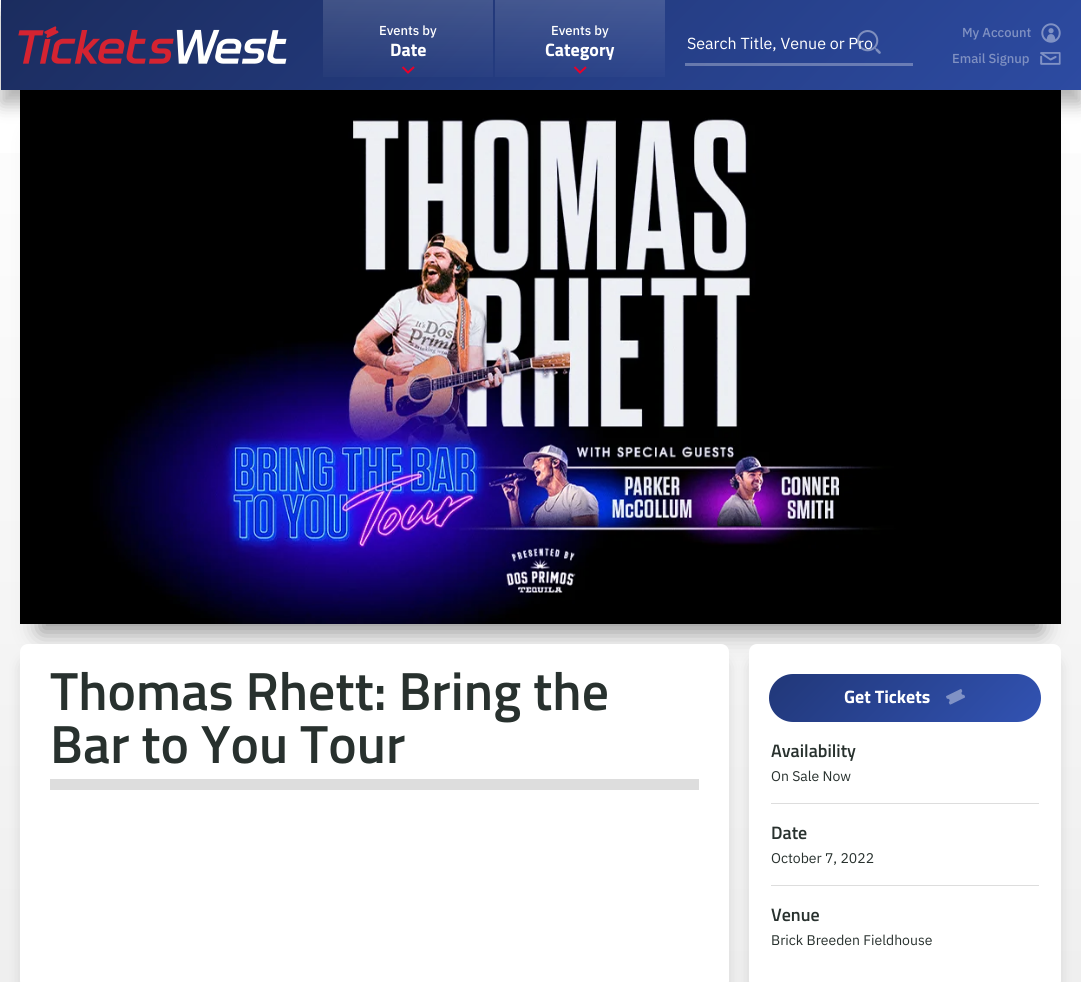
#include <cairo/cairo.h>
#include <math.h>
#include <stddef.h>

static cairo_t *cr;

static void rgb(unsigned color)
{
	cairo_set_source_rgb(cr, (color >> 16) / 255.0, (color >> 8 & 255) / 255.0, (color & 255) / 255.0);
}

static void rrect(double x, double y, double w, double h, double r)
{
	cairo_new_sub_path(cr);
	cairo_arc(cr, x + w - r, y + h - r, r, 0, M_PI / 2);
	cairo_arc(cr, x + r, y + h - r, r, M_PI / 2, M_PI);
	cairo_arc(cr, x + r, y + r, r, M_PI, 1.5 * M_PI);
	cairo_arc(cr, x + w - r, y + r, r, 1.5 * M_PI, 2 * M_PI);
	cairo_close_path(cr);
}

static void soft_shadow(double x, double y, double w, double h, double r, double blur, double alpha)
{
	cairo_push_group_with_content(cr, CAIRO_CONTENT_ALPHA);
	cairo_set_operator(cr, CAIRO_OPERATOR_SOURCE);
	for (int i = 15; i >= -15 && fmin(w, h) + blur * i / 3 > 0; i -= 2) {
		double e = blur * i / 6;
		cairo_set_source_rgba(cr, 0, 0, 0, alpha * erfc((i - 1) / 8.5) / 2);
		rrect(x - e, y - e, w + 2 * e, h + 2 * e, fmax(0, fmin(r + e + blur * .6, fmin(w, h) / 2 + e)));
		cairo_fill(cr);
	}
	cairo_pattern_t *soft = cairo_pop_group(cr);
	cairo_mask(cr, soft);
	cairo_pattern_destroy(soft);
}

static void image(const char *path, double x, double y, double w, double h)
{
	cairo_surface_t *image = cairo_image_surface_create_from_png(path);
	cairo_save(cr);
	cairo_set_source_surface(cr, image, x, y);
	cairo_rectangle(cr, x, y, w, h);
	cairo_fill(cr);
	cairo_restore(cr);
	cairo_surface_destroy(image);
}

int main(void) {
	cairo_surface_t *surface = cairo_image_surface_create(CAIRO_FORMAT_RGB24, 1081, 982);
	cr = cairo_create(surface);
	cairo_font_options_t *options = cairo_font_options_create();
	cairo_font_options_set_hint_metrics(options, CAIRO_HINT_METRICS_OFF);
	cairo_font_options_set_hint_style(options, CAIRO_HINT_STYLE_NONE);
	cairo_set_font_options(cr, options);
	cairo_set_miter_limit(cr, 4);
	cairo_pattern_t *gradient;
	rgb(0xffffff);
	cairo_paint(cr);
	gradient = cairo_pattern_create_linear(541, 0, 540, 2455);
	cairo_pattern_add_color_stop_rgba(gradient, 0, 1, 1, 1, 1);
	cairo_pattern_add_color_stop_rgba(gradient, 1, 0.843, 0.843, 0.843, 1);
	cairo_set_source(cr, gradient);
	cairo_pattern_destroy(gradient);
	cairo_rectangle(cr, 0, 153, 1081, 829);
	cairo_fill(cr);
	rgb(0x000000);
	soft_shadow(40, 138, 1001, 494, 0, 11.5, 0.4);
	image("img/5.png", 20, 90, 1041, 534);
	soft_shadow(1, 14, 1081, 90, 0, 9, 0.3);
	gradient = cairo_pattern_create_linear(248, -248, 834, 338);
	cairo_pattern_add_color_stop_rgba(gradient, 0, 0.106, 0.173, 0.369, 1);
	cairo_pattern_add_color_stop_rgba(gradient, 1, 0.176, 0.294, 0.635, 1);
	cairo_set_source(cr, gradient);
	cairo_pattern_destroy(gradient);
	cairo_rectangle(cr, 1, 0, 1080, 90);
	cairo_fill(cr);
	gradient = cairo_pattern_create_linear(248, -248, 834, 338);
	cairo_pattern_add_color_stop_rgba(gradient, 0, 0.373, 0.42, 0.557, 1);
	cairo_pattern_add_color_stop_rgba(gradient, 1, 0.424, 0.506, 0.745, 1);
	cairo_set_source(cr, gradient);
	cairo_pattern_destroy(gradient);
	cairo_rectangle(cr, 685, 63, 228, 3);
	cairo_fill(cr);
	image("img/1.png", 18, 26, 269, 38);
	gradient = cairo_pattern_create_linear(408, 90, 408, 0);
	cairo_pattern_add_color_stop_rgba(gradient, 0, 1, 1, 1, 0);
	cairo_pattern_add_color_stop_rgba(gradient, 1, 1, 1, 1, 0.15);
	cairo_set_source(cr, gradient);
	cairo_pattern_destroy(gradient);
	cairo_rectangle(cr, 323, 0, 170, 77);
	cairo_fill(cr);
	cairo_new_path(cr);
	cairo_move_to(cr, 402.5, 67);
	cairo_line_to(cr, 408, 72.5);
	cairo_line_to(cr, 414, 67);
	rgb(0xea0029);
	cairo_stroke(cr);
	gradient = cairo_pattern_create_linear(580, 90, 580, 0);
	cairo_pattern_add_color_stop_rgba(gradient, 0, 1, 1, 1, 0);
	cairo_pattern_add_color_stop_rgba(gradient, 1, 1, 1, 1, 0.15);
	cairo_set_source(cr, gradient);
	cairo_pattern_destroy(gradient);
	cairo_rectangle(cr, 495, 0, 170, 77);
	cairo_fill(cr);
	cairo_new_path(cr);
	cairo_move_to(cr, 574.5, 67);
	cairo_line_to(cr, 580, 72.5);
	cairo_line_to(cr, 586, 67);
	rgb(0xea0029);
	cairo_stroke(cr);
	image("img/3.png", 1041, 23, 20, 20);
	image("img/4.png", 1040, 52, 21, 13);
	rgb(0x000000);
	soft_shadow(28, 666, 693, 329, 0, 9, 0.3);
	rgb(0xffffff);
	rrect(20, 644, 709, 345, 8);
	cairo_fill(cr);
	rgb(0xdddddd);
	cairo_rectangle(cr, 50, 779, 649, 11);
	cairo_fill(cr);
	rgb(0x000000);
	soft_shadow(757, 666, 296, 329, 0, 9, 0.3);
	rgb(0xffffff);
	rrect(749, 644, 312, 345, 8);
	cairo_fill(cr);
	gradient = cairo_pattern_create_linear(823, 618, 987, 778);
	cairo_pattern_add_color_stop_rgba(gradient, 0, 0.129, 0.216, 0.471, 1);
	cairo_pattern_add_color_stop_rgba(gradient, 1, 0.196, 0.325, 0.702, 1);
	cairo_set_source(cr, gradient);
	cairo_pattern_destroy(gradient);
	rrect(769, 674, 272, 48, 24);
	cairo_fill(cr);
	image("img/6.png", 946, 689, 19, 16);
	rgb(0xdddddd);
	cairo_rectangle(cr, 771, 803, 268, 1);
	cairo_fill(cr);
	cairo_rectangle(cr, 771, 885, 268, 1);
	cairo_fill(cr);
	cairo_select_font_face(cr, "IBM Plex Sans Medium", CAIRO_FONT_SLANT_NORMAL, CAIRO_FONT_WEIGHT_NORMAL);
	cairo_set_font_size(cr, 13);
	rgb(0xffffff);
	cairo_move_to(cr, 379, 35);
	cairo_show_text(cr, "Events by");
	cairo_select_font_face(cr, "Titillium Web", CAIRO_FONT_SLANT_NORMAL, CAIRO_FONT_WEIGHT_BOLD);
	cairo_set_font_size(cr, 18);
	cairo_move_to(cr, 390, 56);
	cairo_show_text(cr, "Date");
	cairo_select_font_face(cr, "IBM Plex Sans Medium", CAIRO_FONT_SLANT_NORMAL, CAIRO_FONT_WEIGHT_NORMAL);
	cairo_set_font_size(cr, 13);
	cairo_move_to(cr, 551, 35);
	cairo_show_text(cr, "Events by");
	cairo_select_font_face(cr, "Titillium Web", CAIRO_FONT_SLANT_NORMAL, CAIRO_FONT_WEIGHT_BOLD);
	cairo_set_font_size(cr, 18);
	cairo_move_to(cr, 545, 56);
	cairo_show_text(cr, "Category");
	cairo_select_font_face(cr, "IBM Plex Sans", CAIRO_FONT_SLANT_NORMAL, CAIRO_FONT_WEIGHT_NORMAL);
	cairo_set_font_size(cr, 16);
	cairo_move_to(cr, 687, 49);
	cairo_show_text(cr, "Search Title, Venue or Pro");
	image("img/2.png", 857, 30, 24, 24);
	cairo_select_font_face(cr, "IBM Plex Sans Medium", CAIRO_FONT_SLANT_NORMAL, CAIRO_FONT_WEIGHT_NORMAL);
	cairo_set_font_size(cr, 13);
	rgb(0x8091c2);
	cairo_move_to(cr, 962, 37);
	cairo_show_text(cr, "My Account");
	cairo_move_to(cr, 952, 63);
	cairo_show_text(cr, "Email Signup");
	cairo_select_font_face(cr, "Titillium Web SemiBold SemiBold", CAIRO_FONT_SLANT_NORMAL, CAIRO_FONT_WEIGHT_NORMAL);
	cairo_set_font_size(cr, 53.75);
	rgb(0x28312e);
	cairo_move_to(cr, 50, 710);
	cairo_show_text(cr, "Thomas Rhett: Bring the");
	cairo_move_to(cr, 50, 763);
	cairo_show_text(cr, "Bar to You Tour");
	cairo_select_font_face(cr, "Titillium Web", CAIRO_FONT_SLANT_NORMAL, CAIRO_FONT_WEIGHT_BOLD);
	cairo_set_font_size(cr, 18);
	rgb(0xffffff);
	cairo_move_to(cr, 844, 703);
	cairo_show_text(cr, "Get Tickets");
	cairo_select_font_face(cr, "Titillium Web SemiBold SemiBold", CAIRO_FONT_SLANT_NORMAL, CAIRO_FONT_WEIGHT_NORMAL);
	rgb(0x28312e);
	cairo_move_to(cr, 771, 757);
	cairo_show_text(cr, "Availability");
	cairo_select_font_face(cr, "IBM Plex Sans", CAIRO_FONT_SLANT_NORMAL, CAIRO_FONT_WEIGHT_NORMAL);
	cairo_set_font_size(cr, 14);
	cairo_move_to(cr, 771, 781);
	cairo_show_text(cr, "On Sale Now");
	cairo_select_font_face(cr, "Titillium Web SemiBold SemiBold", CAIRO_FONT_SLANT_NORMAL, CAIRO_FONT_WEIGHT_NORMAL);
	cairo_set_font_size(cr, 18);
	cairo_move_to(cr, 771, 839);
	cairo_show_text(cr, "Date");
	cairo_select_font_face(cr, "IBM Plex Sans", CAIRO_FONT_SLANT_NORMAL, CAIRO_FONT_WEIGHT_NORMAL);
	cairo_set_font_size(cr, 14);
	cairo_move_to(cr, 771, 863);
	cairo_show_text(cr, "October 7, 2022");
	cairo_select_font_face(cr, "Titillium Web SemiBold SemiBold", CAIRO_FONT_SLANT_NORMAL, CAIRO_FONT_WEIGHT_NORMAL);
	cairo_set_font_size(cr, 18);
	cairo_move_to(cr, 771, 921);
	cairo_show_text(cr, "Venue");
	cairo_select_font_face(cr, "IBM Plex Sans", CAIRO_FONT_SLANT_NORMAL, CAIRO_FONT_WEIGHT_NORMAL);
	cairo_set_font_size(cr, 14);
	cairo_move_to(cr, 771, 945);
	cairo_show_text(cr, "Brick Breeden Fieldhouse");
	cairo_surface_write_to_png(surface, "page.png");
	cairo_font_options_destroy(options);
	cairo_destroy(cr);
	cairo_surface_destroy(surface);
	return 0;
}
